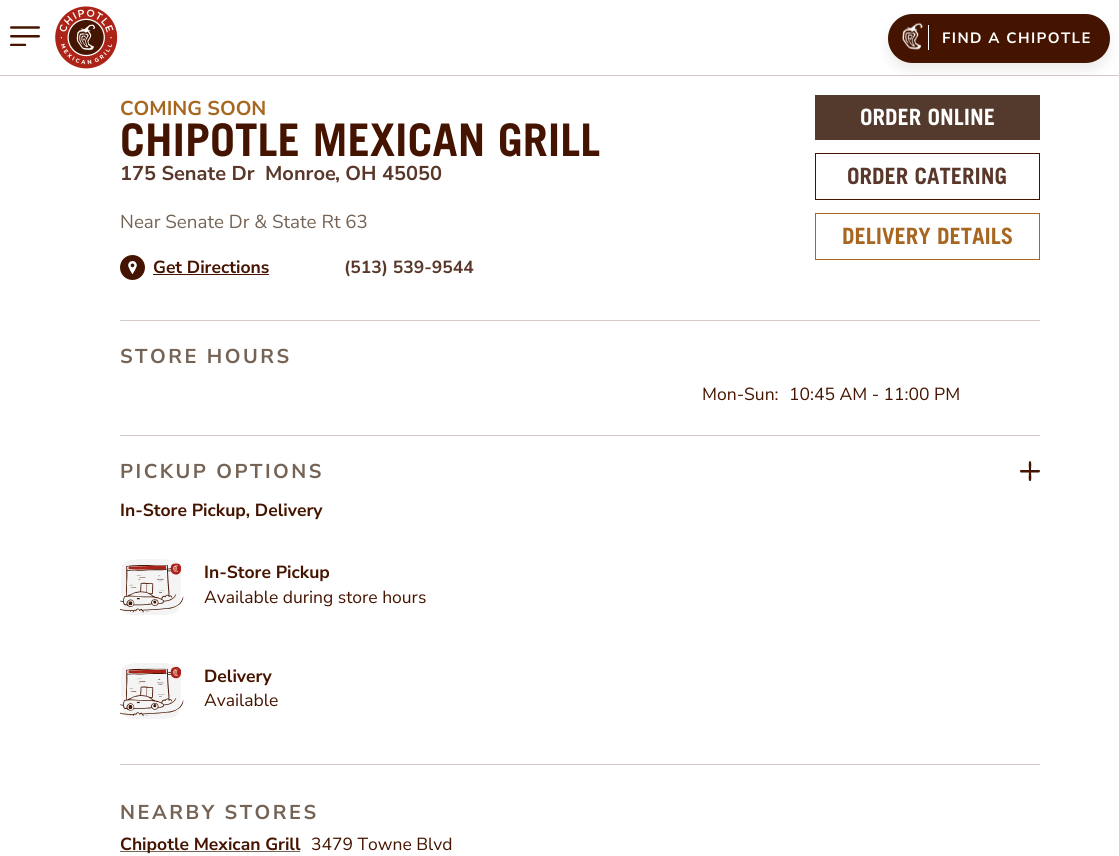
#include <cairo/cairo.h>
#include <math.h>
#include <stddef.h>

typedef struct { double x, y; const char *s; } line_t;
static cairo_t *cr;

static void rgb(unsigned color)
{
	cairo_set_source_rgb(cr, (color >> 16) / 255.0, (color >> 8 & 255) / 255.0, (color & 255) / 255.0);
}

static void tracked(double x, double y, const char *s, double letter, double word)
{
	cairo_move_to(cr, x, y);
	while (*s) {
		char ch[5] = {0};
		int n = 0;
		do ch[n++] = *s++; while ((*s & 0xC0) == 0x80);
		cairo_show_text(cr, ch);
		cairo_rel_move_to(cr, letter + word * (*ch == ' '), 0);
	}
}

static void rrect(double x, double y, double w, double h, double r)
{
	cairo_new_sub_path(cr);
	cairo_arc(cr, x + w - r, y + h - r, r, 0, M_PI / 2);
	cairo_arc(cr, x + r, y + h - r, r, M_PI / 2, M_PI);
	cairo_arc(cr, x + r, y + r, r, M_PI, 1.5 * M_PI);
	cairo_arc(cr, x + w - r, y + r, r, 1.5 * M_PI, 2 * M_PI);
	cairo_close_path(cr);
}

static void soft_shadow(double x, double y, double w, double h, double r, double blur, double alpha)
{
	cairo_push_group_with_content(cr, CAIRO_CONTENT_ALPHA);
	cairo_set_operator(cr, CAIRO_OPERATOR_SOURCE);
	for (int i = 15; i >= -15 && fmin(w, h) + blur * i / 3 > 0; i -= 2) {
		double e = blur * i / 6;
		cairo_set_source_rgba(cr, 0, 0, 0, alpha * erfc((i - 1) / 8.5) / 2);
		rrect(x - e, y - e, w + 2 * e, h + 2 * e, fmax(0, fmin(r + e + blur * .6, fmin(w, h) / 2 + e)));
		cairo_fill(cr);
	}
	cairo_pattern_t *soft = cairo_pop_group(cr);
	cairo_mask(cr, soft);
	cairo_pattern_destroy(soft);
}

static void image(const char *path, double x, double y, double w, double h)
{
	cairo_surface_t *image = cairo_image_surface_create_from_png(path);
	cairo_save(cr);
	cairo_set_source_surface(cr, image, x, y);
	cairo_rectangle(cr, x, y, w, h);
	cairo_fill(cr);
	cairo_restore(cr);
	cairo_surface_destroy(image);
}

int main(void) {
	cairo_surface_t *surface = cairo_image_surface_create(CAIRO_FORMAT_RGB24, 1119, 856);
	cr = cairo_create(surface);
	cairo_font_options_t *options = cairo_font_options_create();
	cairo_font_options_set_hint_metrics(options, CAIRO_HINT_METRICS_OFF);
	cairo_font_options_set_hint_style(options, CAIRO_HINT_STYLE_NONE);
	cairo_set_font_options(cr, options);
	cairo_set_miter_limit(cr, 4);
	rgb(0xffffff);
	cairo_paint(cr);
	rgb(0xd4cbc7);
	cairo_rectangle(cr, 0, 75, 1119, 1);
	cairo_fill(cr);
	image("img/1.png", 10, 26, 30, 20);
	image("img/2.png", 55, 6, 63, 63);
	rgb(0x4d382f);
	soft_shadow(888, 21, 222, 49, 24.5, 5.5, 0.1);
	rgb(0x451400);
	rrect(888, 14, 222, 49, 24.5);
	cairo_fill(cr);
	image("img/3.png", 902, 22, 21, 28);
	rgb(0xffffff);
	cairo_rectangle(cr, 928, 25, 1, 25);
	cairo_fill(cr);
	rgb(0x451400);
	cairo_arc(cr, 132.5, 267.5, 12.5, 0, 2 * M_PI);
	cairo_fill(cr);
	image("img/4.png", 128, 261, 9, 14);
	cairo_rectangle(cr, 153, 274, 116, 1);
	cairo_fill(cr);
	rgb(0x54392d);
	cairo_rectangle(cr, 815, 95, 225, 45);
	cairo_fill(cr);
	cairo_rectangle(cr, 815.5, 153.5, 224, 46);
	rgb(0x451400);
	cairo_set_line_width(cr, 1);
	cairo_stroke(cr);
	cairo_rectangle(cr, 815.5, 213.5, 224, 46);
	rgb(0xa76721);
	cairo_stroke(cr);
	rgb(0xd4cbc7);
	cairo_rectangle(cr, 120, 320, 920, 1);
	cairo_fill(cr);
	cairo_rectangle(cr, 120, 435, 920, 1);
	cairo_fill(cr);
	rgb(0x441400);
	cairo_new_path(cr);
	cairo_move_to(cr, 1030, 461);
	cairo_curve_to(cr, 1032, 461, 1031, 468.5, 1031, 470);
	cairo_line_to(cr, 1036, 470);
	cairo_curve_to(cr, 1037, 470, 1040, 469.5, 1040, 471);
	cairo_curve_to(cr, 1040, 473, 1037.5, 472.5, 1036, 472.5);
	cairo_line_to(cr, 1031, 472.5);
	cairo_curve_to(cr, 1031, 474, 1032, 480, 1030.5, 481);
	cairo_line_to(cr, 1029.5, 481);
	cairo_curve_to(cr, 1028, 480, 1029, 474, 1029, 472.5);
	cairo_line_to(cr, 1021, 472.5);
	cairo_curve_to(cr, 1020.5, 472.5, 1020, 472, 1020, 471);
	cairo_curve_to(cr, 1020, 470.5, 1020.5, 470, 1021, 470);
	cairo_line_to(cr, 1029, 470);
	cairo_curve_to(cr, 1029, 468.5, 1028, 461, 1030, 461);
	cairo_close_path(cr);
	cairo_fill(cr);
	image("img/5.png", 120, 559, 64, 56);
	image("img/6.png", 120, 663, 64, 56);
	rgb(0xd4cbc7);
	cairo_rectangle(cr, 120, 764, 920, 1);
	cairo_fill(cr);
	rgb(0x756456);
	cairo_rectangle(cr, 120, 851, 180, 1);
	cairo_fill(cr);
	cairo_select_font_face(cr, "Nunito Sans", CAIRO_FONT_SLANT_NORMAL, CAIRO_FONT_WEIGHT_BOLD);
	cairo_set_font_size(cr, 15);
	rgb(0xffffff);
	tracked(942, 43, "FIND A CHIPOTLE", 1.4, 0);
	cairo_set_font_size(cr, 20);
	rgb(0xa76721);
	cairo_move_to(cr, 120, 115);
	cairo_show_text(cr, "COMING SOON");
	cairo_select_font_face(cr, "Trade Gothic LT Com", CAIRO_FONT_SLANT_NORMAL, CAIRO_FONT_WEIGHT_BOLD);
	cairo_set_font_size(cr, 45);
	rgb(0x451400);
	cairo_move_to(cr, 120, 156);
	cairo_show_text(cr, "CHIPOTLE MEXICAN GRILL");
	cairo_select_font_face(cr, "Nunito Sans", CAIRO_FONT_SLANT_NORMAL, CAIRO_FONT_WEIGHT_BOLD);
	cairo_set_font_size(cr, 20);
	rgb(0x59382b);
	{
		static const line_t items[] = {
			{120, 180, "175 Senate Dr"},
			{265, 180, "Monroe"},
			{335, 180, ", OH 45050"},
		};
		for (size_t i = 0; i < sizeof items / sizeof *items; i++) {
			cairo_move_to(cr, items[i].x, items[i].y);
			cairo_show_text(cr, items[i].s);
		}
	}
	cairo_select_font_face(cr, "Nunito Sans", CAIRO_FONT_SLANT_NORMAL, CAIRO_FONT_WEIGHT_NORMAL);
	cairo_set_font_size(cr, 18.75);
	rgb(0x756456);
	cairo_move_to(cr, 120, 228);
	cairo_show_text(cr, "Near Senate Dr & State Rt 63");
	cairo_select_font_face(cr, "Nunito Sans", CAIRO_FONT_SLANT_NORMAL, CAIRO_FONT_WEIGHT_BOLD);
	cairo_set_font_size(cr, 17.5);
	rgb(0x451400);
	cairo_move_to(cr, 153, 273);
	cairo_show_text(cr, "Get Directions");
	rgb(0x59382b);
	cairo_move_to(cr, 344, 273);
	cairo_show_text(cr, "(513) 539-9544");
	cairo_select_font_face(cr, "Trade Gothic LT Com", CAIRO_FONT_SLANT_NORMAL, CAIRO_FONT_WEIGHT_BOLD);
	cairo_set_font_size(cr, 22.5);
	rgb(0xffffff);
	cairo_move_to(cr, 860, 125);
	cairo_show_text(cr, "ORDER ONLINE");
	rgb(0x59382b);
	cairo_move_to(cr, 847, 184);
	cairo_show_text(cr, "ORDER CATERING");
	rgb(0xa76721);
	cairo_move_to(cr, 842, 244);
	cairo_show_text(cr, "DELIVERY DETAILS");
	cairo_select_font_face(cr, "Nunito Sans", CAIRO_FONT_SLANT_NORMAL, CAIRO_FONT_WEIGHT_BOLD);
	cairo_set_font_size(cr, 20);
	rgb(0x756456);
	tracked(120, 363, "STORE HOURS", 2.5, 0);
	cairo_select_font_face(cr, "Nunito Sans", CAIRO_FONT_SLANT_NORMAL, CAIRO_FONT_WEIGHT_NORMAL);
	cairo_set_font_size(cr, 17.5);
	rgb(0x451400);
	cairo_move_to(cr, 702, 400);
	cairo_show_text(cr, "Mon-Sun:");
	cairo_move_to(cr, 789, 400);
	cairo_show_text(cr, "10:45 AM - 11:00 PM");
	cairo_select_font_face(cr, "Nunito Sans", CAIRO_FONT_SLANT_NORMAL, CAIRO_FONT_WEIGHT_BOLD);
	cairo_set_font_size(cr, 20);
	rgb(0x756456);
	tracked(120, 478, "PICKUP OPTIONS", 2.5, 0);
	cairo_set_font_size(cr, 17.5);
	rgb(0x451400);
	cairo_move_to(cr, 120, 516);
	cairo_show_text(cr, "In-Store Pickup, Delivery");
	cairo_move_to(cr, 204, 578);
	cairo_show_text(cr, "In-Store Pickup");
	cairo_select_font_face(cr, "Nunito Sans", CAIRO_FONT_SLANT_NORMAL, CAIRO_FONT_WEIGHT_NORMAL);
	cairo_move_to(cr, 204, 603);
	cairo_show_text(cr, "Available during store hours");
	cairo_select_font_face(cr, "Nunito Sans", CAIRO_FONT_SLANT_NORMAL, CAIRO_FONT_WEIGHT_BOLD);
	cairo_move_to(cr, 204, 682);
	cairo_show_text(cr, "Delivery");
	cairo_select_font_face(cr, "Nunito Sans", CAIRO_FONT_SLANT_NORMAL, CAIRO_FONT_WEIGHT_NORMAL);
	cairo_move_to(cr, 204, 706);
	cairo_show_text(cr, "Available");
	cairo_select_font_face(cr, "Nunito Sans", CAIRO_FONT_SLANT_NORMAL, CAIRO_FONT_WEIGHT_BOLD);
	cairo_set_font_size(cr, 20);
	rgb(0x756456);
	tracked(120, 819, "NEARBY STORES", 2.5, 0);
	cairo_set_font_size(cr, 17.5);
	rgb(0x451400);
	cairo_move_to(cr, 120, 850);
	cairo_show_text(cr, "Chipotle Mexican Grill");
	cairo_select_font_face(cr, "Nunito Sans", CAIRO_FONT_SLANT_NORMAL, CAIRO_FONT_WEIGHT_NORMAL);
	cairo_move_to(cr, 311, 850);
	cairo_show_text(cr, "3479 Towne Blvd");
	cairo_surface_write_to_png(surface, "page.png");
	cairo_font_options_destroy(options);
	cairo_destroy(cr);
	cairo_surface_destroy(surface);
	return 0;
}
